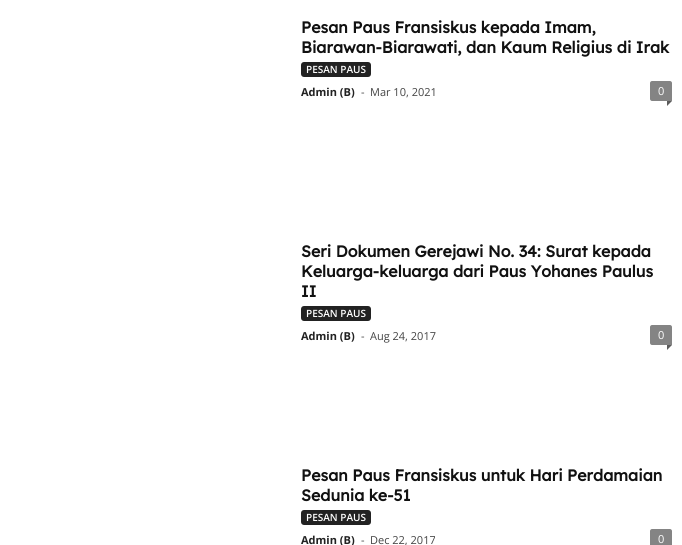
#include <cairo/cairo.h>
#include <math.h>
#include <stddef.h>

typedef struct { double x, y; const char *s; } line_t;
static cairo_t *cr;

static void rgb(unsigned color)
{
	cairo_set_source_rgb(cr, (color >> 16) / 255.0, (color >> 8 & 255) / 255.0, (color & 255) / 255.0);
}

static void rrect(double x, double y, double w, double h, double r)
{
	cairo_new_sub_path(cr);
	cairo_arc(cr, x + w - r, y + h - r, r, 0, M_PI / 2);
	cairo_arc(cr, x + r, y + h - r, r, M_PI / 2, M_PI);
	cairo_arc(cr, x + r, y + r, r, M_PI, 1.5 * M_PI);
	cairo_arc(cr, x + w - r, y + r, r, 1.5 * M_PI, 2 * M_PI);
	cairo_close_path(cr);
}

int main(void) {
	cairo_surface_t *surface = cairo_image_surface_create(CAIRO_FORMAT_RGB24, 682, 545);
	cr = cairo_create(surface);
	cairo_font_options_t *options = cairo_font_options_create();
	cairo_font_options_set_hint_metrics(options, CAIRO_HINT_METRICS_OFF);
	cairo_font_options_set_hint_style(options, CAIRO_HINT_STYLE_NONE);
	cairo_set_font_options(cr, options);
	cairo_set_miter_limit(cr, 4);
	rgb(0xffffff);
	cairo_paint(cr);
	rgb(0x222222);
	rrect(301, 62, 70, 15, 3);
	cairo_fill(cr);
	rgb(0x848484);
	cairo_new_path(cr);
	cairo_move_to(cr, 652, 81);
	cairo_line_to(cr, 670, 81);
	cairo_curve_to(cr, 671, 81, 672, 82, 672, 83);
	cairo_line_to(cr, 672, 101);
	cairo_line_to(cr, 652, 101);
	cairo_curve_to(cr, 651, 101, 650, 100, 650, 99);
	cairo_line_to(cr, 650, 83);
	cairo_curve_to(cr, 650, 82, 651, 81, 652, 81);
	cairo_close_path(cr);
	cairo_fill(cr);
	rgb(0x5b5b5b);
	cairo_new_path(cr);
	cairo_move_to(cr, 667, 101);
	cairo_line_to(cr, 672, 101);
	cairo_line_to(cr, 667, 106);
	cairo_close_path(cr);
	cairo_fill(cr);
	rgb(0x222222);
	rrect(301, 306, 70, 15, 3);
	cairo_fill(cr);
	rgb(0x848484);
	cairo_new_path(cr);
	cairo_move_to(cr, 652, 325);
	cairo_line_to(cr, 670, 325);
	cairo_curve_to(cr, 671, 325, 672, 326, 672, 327);
	cairo_line_to(cr, 672, 345);
	cairo_line_to(cr, 652, 345);
	cairo_curve_to(cr, 651, 345, 650, 344, 650, 343);
	cairo_line_to(cr, 650, 327);
	cairo_curve_to(cr, 650, 326, 651, 325, 652, 325);
	cairo_close_path(cr);
	cairo_fill(cr);
	rgb(0x5b5b5b);
	cairo_new_path(cr);
	cairo_move_to(cr, 667, 345);
	cairo_line_to(cr, 672, 345);
	cairo_line_to(cr, 667, 350);
	cairo_close_path(cr);
	cairo_fill(cr);
	rgb(0x222222);
	rrect(301, 510, 70, 15, 3);
	cairo_fill(cr);
	rgb(0x848484);
	cairo_new_path(cr);
	cairo_move_to(cr, 652, 529);
	cairo_line_to(cr, 670, 529);
	cairo_curve_to(cr, 671, 529, 672, 530, 672, 531);
	cairo_line_to(cr, 672, 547);
	cairo_line_to(cr, 652, 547);
	cairo_curve_to(cr, 651, 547, 650, 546, 650, 545);
	cairo_line_to(cr, 650, 531);
	cairo_curve_to(cr, 650, 530, 651, 529, 652, 529);
	cairo_close_path(cr);
	cairo_fill(cr);
	cairo_select_font_face(cr, "Lexend Deca", CAIRO_FONT_SLANT_NORMAL, CAIRO_FONT_WEIGHT_BOLD);
	cairo_set_font_size(cr, 16);
	rgb(0x111111);
	cairo_move_to(cr, 301, 33);
	cairo_show_text(cr, "Pesan Paus Fransiskus kepada Imam,");
	cairo_move_to(cr, 301, 53);
	cairo_show_text(cr, "Biarawan-Biarawati, dan Kaum Religius di Irak");
	cairo_select_font_face(cr, "Open Sans SemiBold", CAIRO_FONT_SLANT_NORMAL, CAIRO_FONT_WEIGHT_NORMAL);
	cairo_set_font_size(cr, 10);
	rgb(0xffffff);
	cairo_move_to(cr, 306, 73);
	cairo_show_text(cr, "PESAN PAUS");
	cairo_select_font_face(cr, "Open Sans", CAIRO_FONT_SLANT_NORMAL, CAIRO_FONT_WEIGHT_BOLD);
	cairo_set_font_size(cr, 11);
	rgb(0x222222);
	cairo_move_to(cr, 301, 96);
	cairo_show_text(cr, "Admin (B)");
	cairo_select_font_face(cr, "Open Sans", CAIRO_FONT_SLANT_NORMAL, CAIRO_FONT_WEIGHT_NORMAL);
	rgb(0x444444);
	cairo_move_to(cr, 361, 96);
	cairo_show_text(cr, "-");
	cairo_move_to(cr, 370, 96);
	cairo_show_text(cr, "Mar 10, 2021");
	rgb(0xffffff);
	cairo_move_to(cr, 658, 95);
	cairo_show_text(cr, "0");
	cairo_select_font_face(cr, "Lexend Deca", CAIRO_FONT_SLANT_NORMAL, CAIRO_FONT_WEIGHT_BOLD);
	cairo_set_font_size(cr, 16);
	rgb(0x111111);
	{
		static const line_t items[] = {
			{301, 257, "Seri Dokumen Gerejawi No. 34: Surat kepada"},
			{301, 277, "Keluarga-keluarga dari Paus Yohanes Paulus"},
			{301, 297, "II"},
		};
		for (size_t i = 0; i < sizeof items / sizeof *items; i++) {
			cairo_move_to(cr, items[i].x, items[i].y);
			cairo_show_text(cr, items[i].s);
		}
	}
	cairo_select_font_face(cr, "Open Sans SemiBold", CAIRO_FONT_SLANT_NORMAL, CAIRO_FONT_WEIGHT_NORMAL);
	cairo_set_font_size(cr, 10);
	rgb(0xffffff);
	cairo_move_to(cr, 306, 317);
	cairo_show_text(cr, "PESAN PAUS");
	cairo_select_font_face(cr, "Open Sans", CAIRO_FONT_SLANT_NORMAL, CAIRO_FONT_WEIGHT_BOLD);
	cairo_set_font_size(cr, 11);
	rgb(0x222222);
	cairo_move_to(cr, 301, 340);
	cairo_show_text(cr, "Admin (B)");
	cairo_select_font_face(cr, "Open Sans", CAIRO_FONT_SLANT_NORMAL, CAIRO_FONT_WEIGHT_NORMAL);
	rgb(0x444444);
	cairo_move_to(cr, 361, 340);
	cairo_show_text(cr, "-");
	cairo_move_to(cr, 370, 340);
	cairo_show_text(cr, "Aug 24, 2017");
	rgb(0xffffff);
	cairo_move_to(cr, 658, 339);
	cairo_show_text(cr, "0");
	cairo_select_font_face(cr, "Lexend Deca", CAIRO_FONT_SLANT_NORMAL, CAIRO_FONT_WEIGHT_BOLD);
	cairo_set_font_size(cr, 16);
	rgb(0x111111);
	cairo_move_to(cr, 301, 481);
	cairo_show_text(cr, "Pesan Paus Fransiskus untuk Hari Perdamaian");
	cairo_move_to(cr, 301, 501);
	cairo_show_text(cr, "Sedunia ke-51");
	cairo_select_font_face(cr, "Open Sans SemiBold", CAIRO_FONT_SLANT_NORMAL, CAIRO_FONT_WEIGHT_NORMAL);
	cairo_set_font_size(cr, 10);
	rgb(0xffffff);
	cairo_move_to(cr, 306, 521);
	cairo_show_text(cr, "PESAN PAUS");
	cairo_select_font_face(cr, "Open Sans", CAIRO_FONT_SLANT_NORMAL, CAIRO_FONT_WEIGHT_BOLD);
	cairo_set_font_size(cr, 11);
	rgb(0x222222);
	cairo_move_to(cr, 301, 544);
	cairo_show_text(cr, "Admin (B)");
	cairo_select_font_face(cr, "Open Sans", CAIRO_FONT_SLANT_NORMAL, CAIRO_FONT_WEIGHT_NORMAL);
	rgb(0x444444);
	cairo_move_to(cr, 361, 544);
	cairo_show_text(cr, "-");
	cairo_move_to(cr, 370, 544);
	cairo_show_text(cr, "Dec 22, 2017");
	rgb(0xffffff);
	cairo_move_to(cr, 658, 543);
	cairo_show_text(cr, "0");
	cairo_surface_write_to_png(surface, "page.png");
	cairo_font_options_destroy(options);
	cairo_destroy(cr);
	cairo_surface_destroy(surface);
	return 0;
}
